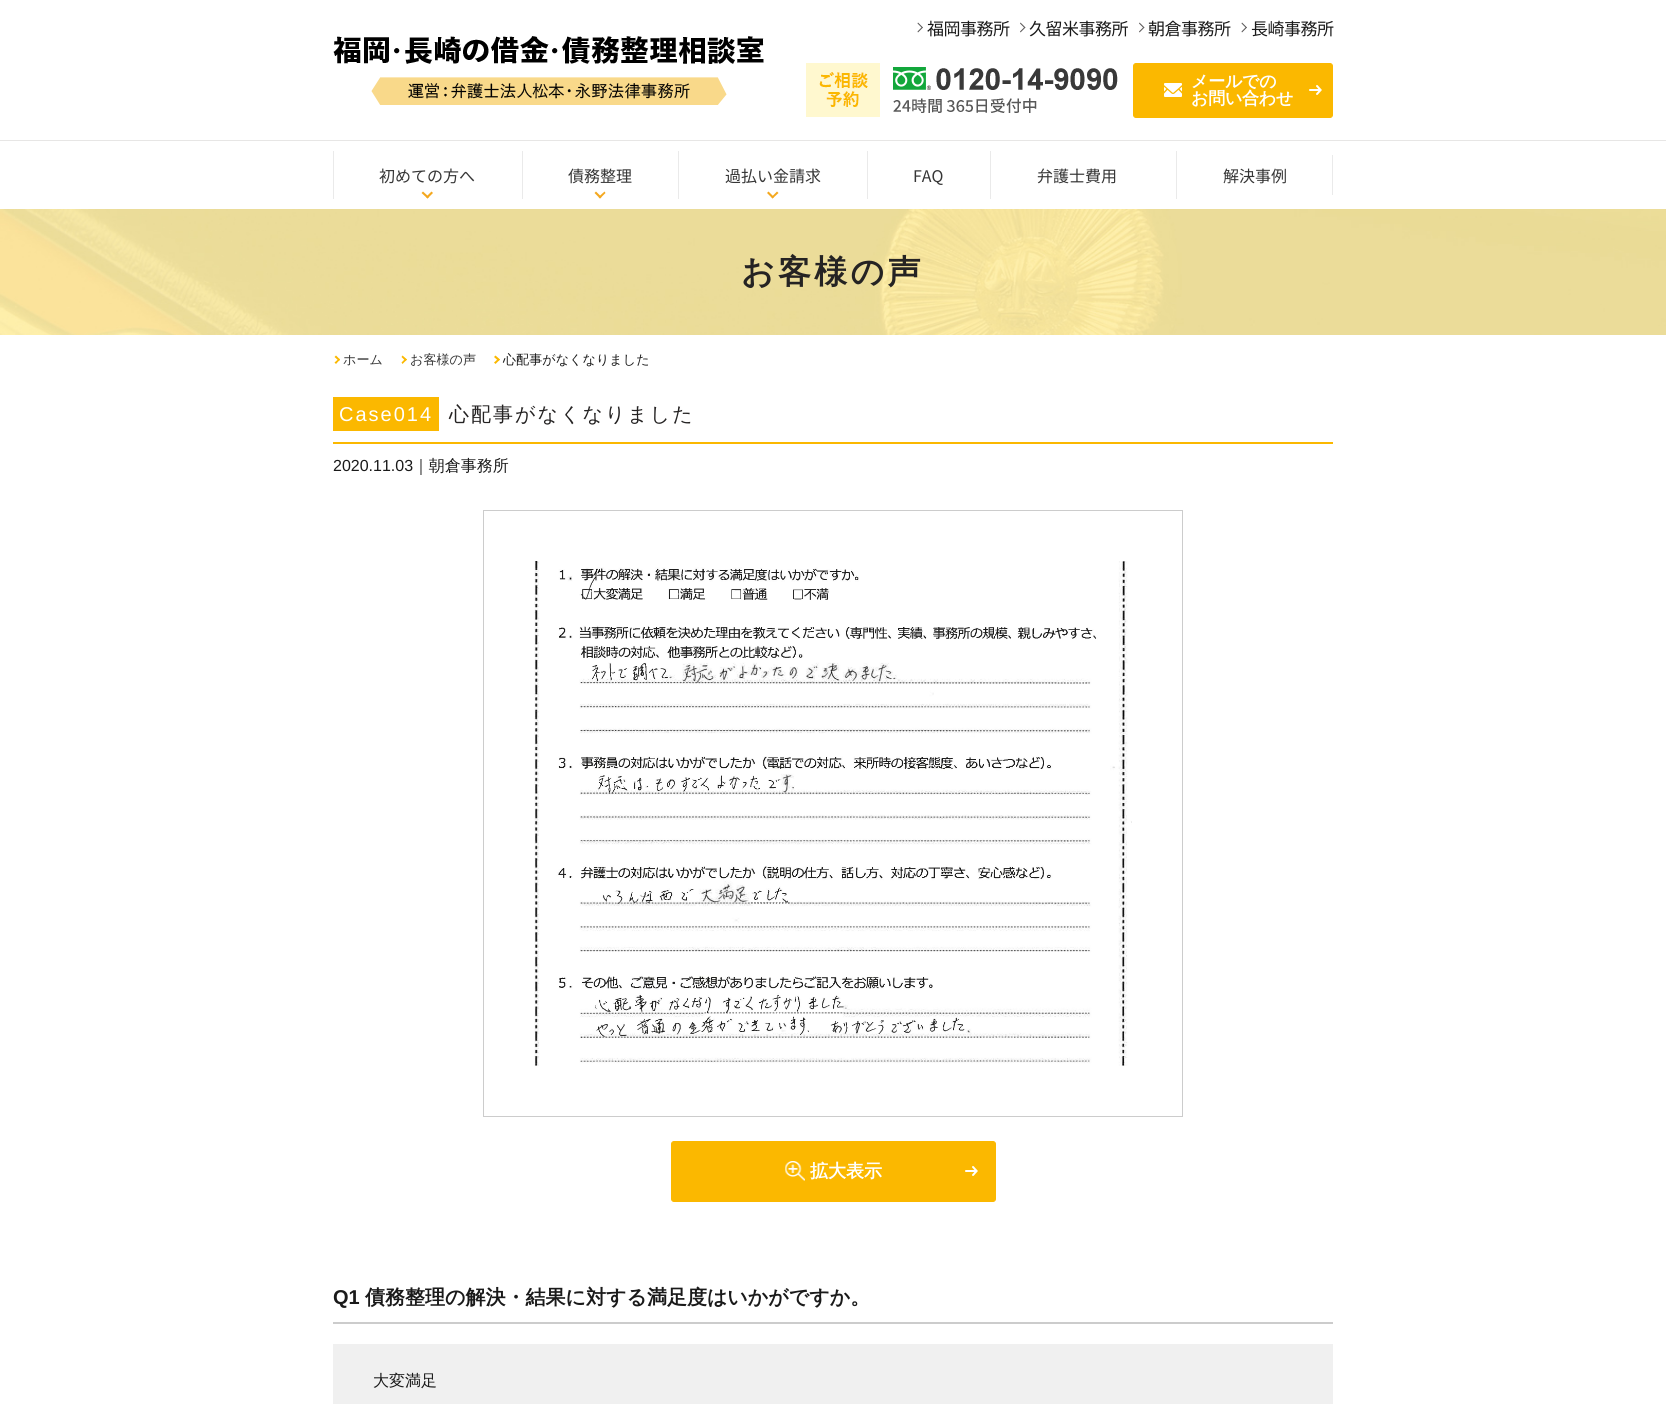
#include <cairo/cairo.h>
#include <math.h>
#include <stddef.h>

typedef struct { double x, y; const char *s; } line_t;
typedef struct { double x, y, w, h; unsigned color; } box_t;
static cairo_t *cr;

static void rgb(unsigned color)
{
	cairo_set_source_rgb(cr, (color >> 16) / 255.0, (color >> 8 & 255) / 255.0, (color & 255) / 255.0);
}

static void tracked(double x, double y, const char *s, double letter, double word)
{
	cairo_move_to(cr, x, y);
	while (*s) {
		char ch[5] = {0};
		int n = 0;
		do ch[n++] = *s++; while ((*s & 0xC0) == 0x80);
		cairo_show_text(cr, ch);
		cairo_rel_move_to(cr, letter + word * (*ch == ' '), 0);
	}
}

static void rrect(double x, double y, double w, double h, double r)
{
	cairo_new_sub_path(cr);
	cairo_arc(cr, x + w - r, y + h - r, r, 0, M_PI / 2);
	cairo_arc(cr, x + r, y + h - r, r, M_PI / 2, M_PI);
	cairo_arc(cr, x + r, y + r, r, M_PI, 1.5 * M_PI);
	cairo_arc(cr, x + w - r, y + r, r, 1.5 * M_PI, 2 * M_PI);
	cairo_close_path(cr);
}

static void image(const char *path, double x, double y, double w, double h)
{
	cairo_surface_t *image = cairo_image_surface_create_from_png(path);
	cairo_save(cr);
	cairo_set_source_surface(cr, image, x, y);
	cairo_rectangle(cr, x, y, w, h);
	cairo_fill(cr);
	cairo_restore(cr);
	cairo_surface_destroy(image);
}

int main(void) {
	cairo_surface_t *surface = cairo_image_surface_create(CAIRO_FORMAT_RGB24, 1666, 1404);
	cr = cairo_create(surface);
	cairo_font_options_t *options = cairo_font_options_create();
	cairo_font_options_set_hint_metrics(options, CAIRO_HINT_METRICS_OFF);
	cairo_font_options_set_hint_style(options, CAIRO_HINT_STYLE_NONE);
	cairo_set_font_options(cr, options);
	cairo_set_miter_limit(cr, 4);
	rgb(0xffffff);
	cairo_paint(cr);
	image("img/1.png", 333, 36, 431, 69);
	rgb(0x5b5959);
	cairo_new_path(cr);
	cairo_move_to(cr, 918, 22.5);
	cairo_line_to(cr, 923, 27.5);
	cairo_line_to(cr, 922, 28);
	cairo_line_to(cr, 917.5, 23.5);
	cairo_close_path(cr);
	cairo_fill(cr);
	cairo_new_path(cr);
	cairo_move_to(cr, 922, 27);
	cairo_line_to(cr, 923, 27.5);
	cairo_line_to(cr, 918, 32.5);
	cairo_line_to(cr, 917.5, 31.5);
	cairo_close_path(cr);
	cairo_fill(cr);
	cairo_new_path(cr);
	cairo_move_to(cr, 1020.5, 22.5);
	cairo_line_to(cr, 1025.5, 27.5);
	cairo_line_to(cr, 1024.5, 28);
	cairo_line_to(cr, 1020, 23.5);
	cairo_close_path(cr);
	cairo_fill(cr);
	cairo_new_path(cr);
	cairo_move_to(cr, 1024.5, 27);
	cairo_line_to(cr, 1025.5, 27.5);
	cairo_line_to(cr, 1020.5, 32.5);
	cairo_line_to(cr, 1020, 31.5);
	cairo_close_path(cr);
	cairo_fill(cr);
	cairo_new_path(cr);
	cairo_move_to(cr, 1139.5, 22.5);
	cairo_line_to(cr, 1144.5, 27.5);
	cairo_line_to(cr, 1143.5, 28);
	cairo_line_to(cr, 1139, 23.5);
	cairo_close_path(cr);
	cairo_fill(cr);
	cairo_new_path(cr);
	cairo_move_to(cr, 1143.5, 27);
	cairo_line_to(cr, 1144.5, 27.5);
	cairo_line_to(cr, 1139.5, 32.5);
	cairo_line_to(cr, 1139, 31.5);
	cairo_close_path(cr);
	cairo_fill(cr);
	cairo_new_path(cr);
	cairo_move_to(cr, 1242, 22.5);
	cairo_line_to(cr, 1247, 27.5);
	cairo_line_to(cr, 1246, 28);
	cairo_line_to(cr, 1241.5, 23.5);
	cairo_close_path(cr);
	cairo_fill(cr);
	cairo_new_path(cr);
	cairo_move_to(cr, 1246, 27);
	cairo_line_to(cr, 1247, 27.5);
	cairo_line_to(cr, 1242, 32.5);
	cairo_line_to(cr, 1241.5, 31.5);
	cairo_close_path(cr);
	cairo_fill(cr);
	image("img/2.png", 806, 63, 312, 54);
	rgb(0xfbb800);
	rrect(1133.5, 63.5, 199, 54, 2.5);
	cairo_fill_preserve(cr);
	cairo_set_line_width(cr, 1);
	cairo_stroke(cr);
	image("img/3.png", 1164, 83, 18, 14);
	image("img/4.png", 1309, 85, 13, 10);
	rgb(0xe7e6e5);
	cairo_rectangle(cr, 0, 140, 1666, 1);
	cairo_fill(cr);
	rgb(0xeaeaea);
	cairo_rectangle(cr, 333, 151, 1, 48);
	cairo_fill(cr);
	rgb(0xf4a81f);
	cairo_new_path(cr);
	cairo_move_to(cr, 433, 193);
	cairo_line_to(cr, 427.5, 198.5);
	cairo_line_to(cr, 426, 197);
	cairo_line_to(cr, 431.5, 191.5);
	cairo_close_path(cr);
	cairo_fill(cr);
	cairo_new_path(cr);
	cairo_move_to(cr, 429, 197);
	cairo_line_to(cr, 427.5, 198.5);
	cairo_line_to(cr, 421.5, 193);
	cairo_line_to(cr, 423, 191.5);
	cairo_close_path(cr);
	cairo_fill(cr);
	rgb(0xeaeaea);
	cairo_rectangle(cr, 522, 151, 1, 48);
	cairo_fill(cr);
	rgb(0xf4a81f);
	cairo_new_path(cr);
	cairo_move_to(cr, 605.5, 193);
	cairo_line_to(cr, 600, 198.5);
	cairo_line_to(cr, 598.5, 197);
	cairo_line_to(cr, 604.5, 191.5);
	cairo_close_path(cr);
	cairo_fill(cr);
	cairo_new_path(cr);
	cairo_move_to(cr, 601.5, 197);
	cairo_line_to(cr, 600, 198.5);
	cairo_line_to(cr, 594.5, 193);
	cairo_line_to(cr, 596, 191.5);
	cairo_close_path(cr);
	cairo_fill(cr);
	rgb(0xeaeaea);
	cairo_rectangle(cr, 678, 151, 1, 48);
	cairo_fill(cr);
	rgb(0xf4a81f);
	cairo_new_path(cr);
	cairo_move_to(cr, 778.5, 193);
	cairo_line_to(cr, 772.5, 198.5);
	cairo_line_to(cr, 771.5, 197);
	cairo_line_to(cr, 777, 191.5);
	cairo_close_path(cr);
	cairo_fill(cr);
	cairo_new_path(cr);
	cairo_move_to(cr, 774, 197);
	cairo_line_to(cr, 772.5, 198.5);
	cairo_line_to(cr, 767, 193);
	cairo_line_to(cr, 768.5, 191.5);
	cairo_close_path(cr);
	cairo_fill(cr);
	{
		static const box_t items[] = {
			{867, 151, 1, 48, 0xeaeaea},
			{990, 151, 1, 48, 0xeaeaea},
			{1176, 151, 1, 48, 0xeaeaea},
			{1332, 155, 1, 40, 0xeaeaea},
		};
		for (size_t i = 0; i < sizeof items / sizeof *items; i++) {
			rgb(items[i].color);
			cairo_rectangle(cr, items[i].x, items[i].y, items[i].w, items[i].h);
			cairo_fill(cr);
		}
	}
	image("img/5.png", 0, 209, 1666, 126);
	rgb(0xfbb800);
	cairo_new_path(cr);
	cairo_move_to(cr, 340, 359.5);
	cairo_line_to(cr, 336, 364);
	cairo_line_to(cr, 334.5, 362.5);
	cairo_line_to(cr, 339, 358.5);
	cairo_close_path(cr);
	cairo_fill(cr);
	cairo_new_path(cr);
	cairo_move_to(cr, 340, 359.5);
	cairo_line_to(cr, 339, 361);
	cairo_line_to(cr, 334.5, 357);
	cairo_line_to(cr, 336, 355.5);
	cairo_close_path(cr);
	cairo_fill(cr);
	cairo_new_path(cr);
	cairo_move_to(cr, 407, 359.5);
	cairo_line_to(cr, 402.5, 364);
	cairo_line_to(cr, 401.5, 362.5);
	cairo_line_to(cr, 405.5, 358.5);
	cairo_close_path(cr);
	cairo_fill(cr);
	cairo_new_path(cr);
	cairo_move_to(cr, 407, 359.5);
	cairo_line_to(cr, 405.5, 361);
	cairo_line_to(cr, 401.5, 357);
	cairo_line_to(cr, 402.5, 355.5);
	cairo_close_path(cr);
	cairo_fill(cr);
	cairo_new_path(cr);
	cairo_move_to(cr, 500, 359.5);
	cairo_line_to(cr, 495.5, 364);
	cairo_line_to(cr, 494, 362.5);
	cairo_line_to(cr, 498.5, 358.5);
	cairo_close_path(cr);
	cairo_fill(cr);
	cairo_new_path(cr);
	cairo_move_to(cr, 500, 359.5);
	cairo_line_to(cr, 498.5, 361);
	cairo_line_to(cr, 494, 357);
	cairo_line_to(cr, 495.5, 355.5);
	cairo_close_path(cr);
	cairo_fill(cr);
	cairo_rectangle(cr, 333, 442, 1000, 2);
	cairo_fill(cr);
	cairo_rectangle(cr, 333, 397, 106, 34);
	cairo_fill(cr);
	cairo_rectangle(cr, 483.5, 510.5, 699, 606);
	rgb(0xcccccc);
	cairo_stroke(cr);
	image("img/6.png", 534, 561, 598, 505);
	rgb(0xfbb800);
	rrect(671.5, 1141.5, 324, 60, 2.5);
	cairo_fill_preserve(cr);
	cairo_stroke(cr);
	image("img/7.png", 785, 1161, 20, 20);
	image("img/4.png", 965, 1166, 13, 10);
	rgb(0xcccccc);
	cairo_rectangle(cr, 333, 1322, 1000, 2);
	cairo_fill(cr);
	rgb(0xf0f0f0);
	cairo_rectangle(cr, 333, 1344, 1000, 60);
	cairo_fill(cr);
	cairo_select_font_face(cr, "Noto Sans JP Thin", CAIRO_FONT_SLANT_NORMAL, CAIRO_FONT_WEIGHT_NORMAL);
	cairo_set_font_size(cr, 17);
	rgb(0x1a1a1a);
	{
		static const line_t items[] = {
			{927, 35, "福岡事務所"},
			{1029, 35, "久留米事務所"},
			{1148, 35, "朝倉事務所"},
			{1251, 35, "長崎事務所"},
		};
		for (size_t i = 0; i < sizeof items / sizeof *items; i++) {
			tracked(items[i].x, items[i].y, items[i].s, -0.5, 0);
		}
	}
	cairo_select_font_face(cr, "WenQuanYi Zen Hei", CAIRO_FONT_SLANT_NORMAL, CAIRO_FONT_WEIGHT_BOLD);
	rgb(0xffffff);
	tracked(1191, 87, "メールでの", -0.25, 0);
	tracked(1191, 104, "お問い合わせ", -0.25, 0);
	cairo_select_font_face(cr, "Noto Sans JP Thin", CAIRO_FONT_SLANT_NORMAL, CAIRO_FONT_WEIGHT_NORMAL);
	cairo_set_font_size(cr, 16);
	rgb(0x363636);
	{
		static const line_t items[] = {
			{379, 182, "初めての方へ"},
			{568, 182, "債務整理"},
			{725, 182, "過払い金請求"},
			{913, 182, "FAQ"},
			{1037, 182, "弁護士費用"},
			{1223, 182, "解決事例"},
		};
		for (size_t i = 0; i < sizeof items / sizeof *items; i++) {
			cairo_move_to(cr, items[i].x, items[i].y);
			cairo_show_text(cr, items[i].s);
		}
	}
	cairo_select_font_face(cr, "WenQuanYi Zen Hei", CAIRO_FONT_SLANT_NORMAL, CAIRO_FONT_WEIGHT_BOLD);
	cairo_set_font_size(cr, 33);
	rgb(0x252323);
	tracked(741, 283, "お客様の声", 3.25, 0);
	cairo_select_font_face(cr, "WenQuanYi Zen Hei Medium", CAIRO_FONT_SLANT_NORMAL, CAIRO_FONT_WEIGHT_NORMAL);
	cairo_set_font_size(cr, 13.1);
	rgb(0x363636);
	cairo_move_to(cr, 343, 364);
	cairo_show_text(cr, "ホーム");
	cairo_move_to(cr, 410, 364);
	cairo_show_text(cr, "お客様の声");
	rgb(0x1a1a1a);
	cairo_move_to(cr, 503, 364);
	cairo_show_text(cr, "心配事がなくなりました");
	cairo_select_font_face(cr, "Liberation Sans", CAIRO_FONT_SLANT_NORMAL, CAIRO_FONT_WEIGHT_NORMAL);
	cairo_set_font_size(cr, 20);
	rgb(0xffffff);
	tracked(339, 421, "Case014", 2, 0);
	cairo_select_font_face(cr, "WenQuanYi Zen Hei Medium", CAIRO_FONT_SLANT_NORMAL, CAIRO_FONT_WEIGHT_NORMAL);
	rgb(0x252323);
	tracked(449, 421, "心配事がなくなりました", 2, 0);
	cairo_select_font_face(cr, "Liberation Sans", CAIRO_FONT_SLANT_NORMAL, CAIRO_FONT_WEIGHT_NORMAL);
	cairo_set_font_size(cr, 16);
	rgb(0x1a1a1a);
	cairo_move_to(cr, 333, 471);
	cairo_show_text(cr, "2020.11.03");
	cairo_select_font_face(cr, "WenQuanYi Zen Hei Medium", CAIRO_FONT_SLANT_NORMAL, CAIRO_FONT_WEIGHT_NORMAL);
	cairo_move_to(cr, 413, 471);
	cairo_show_text(cr, "｜朝倉事務所");
	cairo_select_font_face(cr, "WenQuanYi Zen Hei", CAIRO_FONT_SLANT_NORMAL, CAIRO_FONT_WEIGHT_BOLD);
	cairo_set_font_size(cr, 18);
	rgb(0xffffff);
	cairo_move_to(cr, 810, 1177);
	cairo_show_text(cr, "拡大表示");
	cairo_select_font_face(cr, "Liberation Sans", CAIRO_FONT_SLANT_NORMAL, CAIRO_FONT_WEIGHT_BOLD);
	cairo_set_font_size(cr, 20);
	rgb(0x1a1a1a);
	cairo_move_to(cr, 333, 1304);
	cairo_show_text(cr, "Q1");
	cairo_select_font_face(cr, "WenQuanYi Zen Hei", CAIRO_FONT_SLANT_NORMAL, CAIRO_FONT_WEIGHT_BOLD);
	cairo_move_to(cr, 365, 1304);
	cairo_show_text(cr, "債務整理の解決・結果に対する満足度はいかがですか。");
	cairo_select_font_face(cr, "WenQuanYi Zen Hei Medium", CAIRO_FONT_SLANT_NORMAL, CAIRO_FONT_WEIGHT_NORMAL);
	cairo_set_font_size(cr, 16);
	cairo_move_to(cr, 373, 1386);
	cairo_show_text(cr, "大変満足");
	cairo_surface_write_to_png(surface, "page.png");
	cairo_font_options_destroy(options);
	cairo_destroy(cr);
	cairo_surface_destroy(surface);
	return 0;
}
